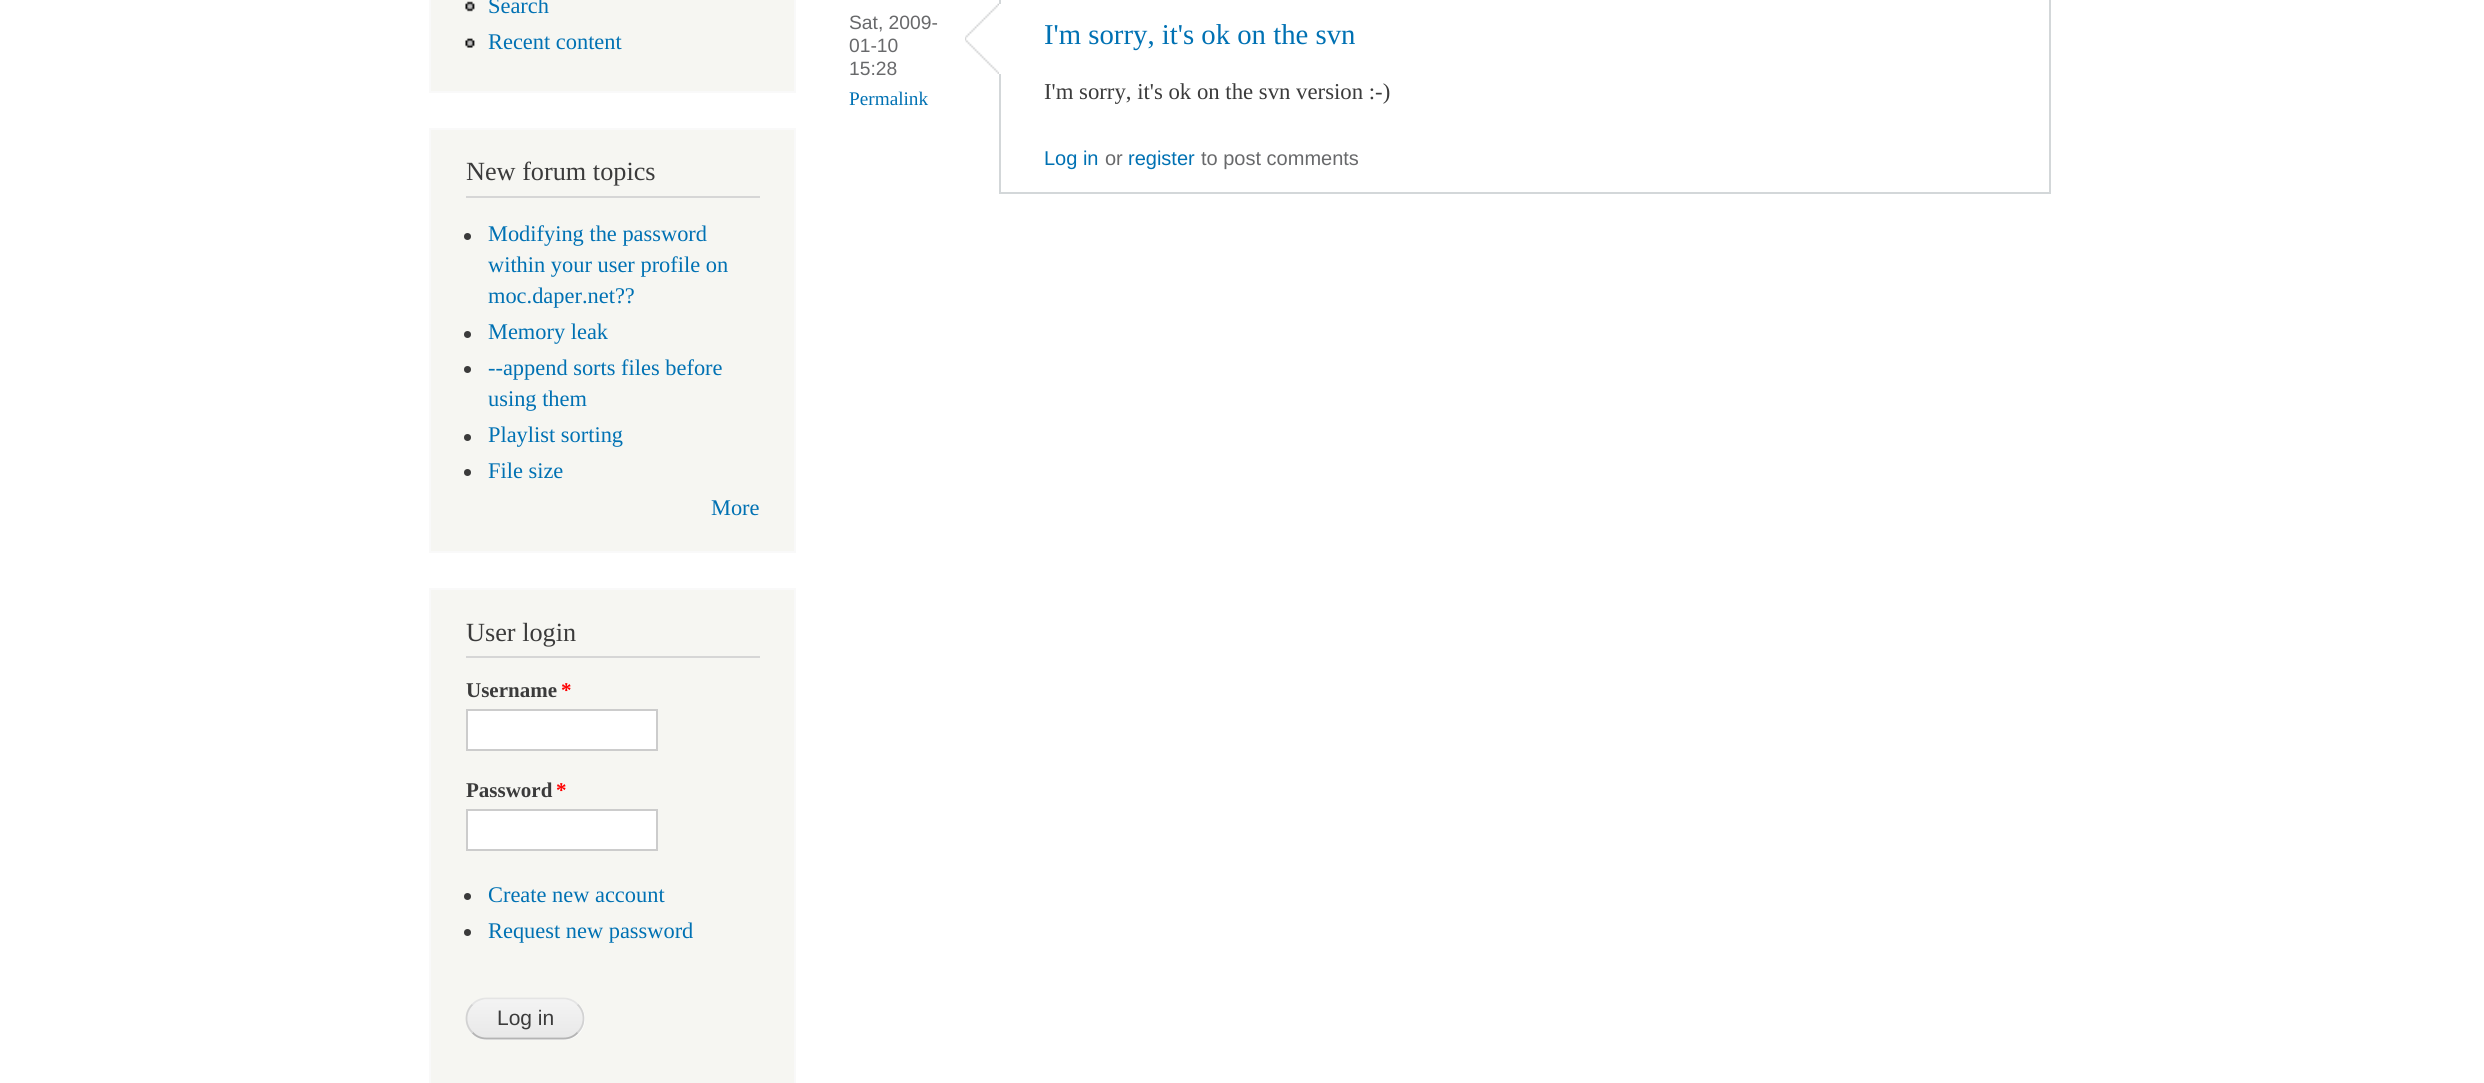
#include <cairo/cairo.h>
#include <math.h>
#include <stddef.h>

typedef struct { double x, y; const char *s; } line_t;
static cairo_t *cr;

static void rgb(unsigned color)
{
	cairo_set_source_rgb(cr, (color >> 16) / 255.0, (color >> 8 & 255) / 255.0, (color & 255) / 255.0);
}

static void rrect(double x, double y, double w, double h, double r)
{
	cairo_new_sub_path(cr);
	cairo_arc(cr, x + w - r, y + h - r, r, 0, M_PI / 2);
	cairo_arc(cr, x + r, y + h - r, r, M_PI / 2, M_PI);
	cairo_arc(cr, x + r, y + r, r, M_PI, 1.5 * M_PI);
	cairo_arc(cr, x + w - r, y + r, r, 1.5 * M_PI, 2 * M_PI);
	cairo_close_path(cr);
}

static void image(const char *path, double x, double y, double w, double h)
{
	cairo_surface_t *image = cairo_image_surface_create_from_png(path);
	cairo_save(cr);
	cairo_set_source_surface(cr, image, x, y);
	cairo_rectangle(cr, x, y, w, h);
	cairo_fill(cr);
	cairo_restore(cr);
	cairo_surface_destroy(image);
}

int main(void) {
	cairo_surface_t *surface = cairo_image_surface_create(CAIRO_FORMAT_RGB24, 2484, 1083);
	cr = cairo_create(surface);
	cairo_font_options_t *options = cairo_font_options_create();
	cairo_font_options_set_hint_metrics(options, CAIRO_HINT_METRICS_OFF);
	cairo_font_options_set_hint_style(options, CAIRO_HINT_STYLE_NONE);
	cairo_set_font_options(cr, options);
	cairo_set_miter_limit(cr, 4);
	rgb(0xffffff);
	cairo_paint(cr);
	rgb(0xf6f6f2);
	cairo_rectangle(cr, 430, -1, 365, 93);
	cairo_fill_preserve(cr);
	rgb(0xf9f9f9);
	cairo_stroke(cr);
	image("img/1.png", 465, 1, 10, 11);
	image("img/2.png", 465, 38, 10, 10);
	rgb(0xf6f6f2);
	cairo_rectangle(cr, 430, 129, 365, 423);
	cairo_fill_preserve(cr);
	rgb(0xf9f9f9);
	cairo_stroke(cr);
	rgb(0xd6d6d6);
	cairo_rectangle(cr, 466, 196, 294, 2);
	cairo_fill(cr);
	rgb(0x3b3b3b);
	cairo_arc(cr, 467.5, 236.5, 3.5, 0, 2 * M_PI);
	cairo_fill(cr);
	cairo_arc(cr, 467.5, 334.5, 3.5, 0, 2 * M_PI);
	cairo_fill(cr);
	cairo_arc(cr, 467.5, 369.5, 3.5, 0, 2 * M_PI);
	cairo_fill(cr);
	cairo_arc(cr, 467.5, 437.5, 3.5, 0, 2 * M_PI);
	cairo_fill(cr);
	cairo_arc(cr, 467.5, 472.5, 3.5, 0, 2 * M_PI);
	cairo_fill(cr);
	rgb(0xf6f6f2);
	cairo_rectangle(cr, 430, 589, 365, 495);
	cairo_fill_preserve(cr);
	rgb(0xf9f9f9);
	cairo_stroke(cr);
	rgb(0xd6d6d6);
	cairo_rectangle(cr, 466, 656, 294, 2);
	cairo_fill(cr);
	rgb(0xffffff);
	cairo_rectangle(cr, 467, 710, 190, 40);
	cairo_fill_preserve(cr);
	rgb(0xcccccc);
	cairo_stroke(cr);
	rgb(0xffffff);
	cairo_rectangle(cr, 467, 810, 190, 40);
	cairo_fill_preserve(cr);
	rgb(0xcccccc);
	cairo_stroke(cr);
	rgb(0x3b3b3b);
	cairo_arc(cr, 467.5, 896.5, 3.5, 0, 2 * M_PI);
	cairo_fill(cr);
	cairo_arc(cr, 467.5, 932.5, 3.5, 0, 2 * M_PI);
	cairo_fill(cr);
	rgb(0xffffff);
	rrect(466, 998, 119, 42, 21);
	cairo_fill(cr);
	image("img/3.png", 466, 999, 118, 41);
	cairo_new_path(cr);
	cairo_move_to(cr, 472.5, 1004.5);
	cairo_curve_to(cr, 476, 1000.5, 481, 998.5, 486.5, 998.5);
	cairo_line_to(cr, 563.5, 998.5);
	cairo_curve_to(cr, 569, 998.5, 574, 1000.5, 577.5, 1004.5);
	rgb(0xe4e4e4);
	cairo_set_line_width(cr, 1.8);
	cairo_stroke(cr);
	cairo_new_path(cr);
	cairo_move_to(cr, 577.5, 1004.5);
	cairo_curve_to(cr, 585.5, 1012, 585.5, 1025, 577.5, 1032.5);
	rgb(0xd2d2d2);
	cairo_stroke(cr);
	cairo_new_path(cr);
	cairo_move_to(cr, 577.5, 1032.5);
	cairo_curve_to(cr, 574, 1036.5, 569, 1038.5, 563.5, 1038.5);
	cairo_line_to(cr, 486.5, 1038.5);
	cairo_curve_to(cr, 481, 1038.5, 476, 1036.5, 472.5, 1032.5);
	rgb(0xb4b4b4);
	cairo_stroke(cr);
	cairo_new_path(cr);
	cairo_move_to(cr, 472.5, 1032.5);
	cairo_curve_to(cr, 464.5, 1025, 464.5, 1012, 472.5, 1004.5);
	rgb(0xd2d2d2);
	cairo_stroke(cr);
	cairo_rectangle(cr, 1000, -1, 1050, 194);
	rgb(0xd3d7d9);
	cairo_set_line_width(cr, 2);
	cairo_stroke(cr);
	image("img/4.png", 965, 3, 34, 71);
	rgb(0xffffff);
	cairo_rectangle(cr, 999, 4, 2, 70);
	cairo_fill(cr);
	cairo_select_font_face(cr, "Liberation Serif", CAIRO_FONT_SLANT_NORMAL, CAIRO_FONT_WEIGHT_NORMAL);
	cairo_set_font_size(cr, 22.4);
	rgb(0x0071b3);
	cairo_move_to(cr, 488, 13);
	cairo_show_text(cr, "Search");
	cairo_move_to(cr, 488, 49);
	cairo_show_text(cr, "Recent content");
	cairo_set_font_size(cr, 26.25);
	rgb(0x3b3b3b);
	cairo_move_to(cr, 466, 180);
	cairo_show_text(cr, "New forum topics");
	cairo_set_font_size(cr, 22.4);
	rgb(0x0071b3);
	{
		static const line_t items[] = {
			{488, 241, "Modifying the password"},
			{488, 272, "within your user profile on"},
			{488, 303, "moc.daper.net?\077"},
			{488, 339, "Memory leak"},
			{488, 375, "--append sorts files before"},
			{488, 406, "using them"},
			{488, 442, "Playlist sorting"},
			{488, 478, "File size"},
			{711, 515, "More"},
		};
		for (size_t i = 0; i < sizeof items / sizeof *items; i++) {
			cairo_move_to(cr, items[i].x, items[i].y);
			cairo_show_text(cr, items[i].s);
		}
	}
	cairo_set_font_size(cr, 26.25);
	rgb(0x3b3b3b);
	cairo_move_to(cr, 466, 641);
	cairo_show_text(cr, "User login");
	cairo_select_font_face(cr, "Liberation Serif", CAIRO_FONT_SLANT_NORMAL, CAIRO_FONT_WEIGHT_BOLD);
	cairo_set_font_size(cr, 21);
	cairo_move_to(cr, 466, 697);
	cairo_show_text(cr, "Username");
	rgb(0xff0000);
	cairo_move_to(cr, 561, 697);
	cairo_show_text(cr, "*");
	rgb(0x3b3b3b);
	cairo_move_to(cr, 466, 797);
	cairo_show_text(cr, "Password");
	rgb(0xff0000);
	cairo_move_to(cr, 556, 797);
	cairo_show_text(cr, "*");
	cairo_select_font_face(cr, "Liberation Serif", CAIRO_FONT_SLANT_NORMAL, CAIRO_FONT_WEIGHT_NORMAL);
	cairo_set_font_size(cr, 22.4);
	rgb(0x0071b3);
	cairo_move_to(cr, 488, 902);
	cairo_show_text(cr, "Create new account");
	cairo_move_to(cr, 488, 938);
	cairo_show_text(cr, "Request new password");
	cairo_select_font_face(cr, "Liberation Sans", CAIRO_FONT_SLANT_NORMAL, CAIRO_FONT_WEIGHT_NORMAL);
	cairo_set_font_size(cr, 21);
	rgb(0x3b3b3b);
	cairo_move_to(cr, 497, 1025);
	cairo_show_text(cr, "Log in");
	cairo_set_font_size(cr, 19.25);
	rgb(0x68696b);
	{
		static const line_t items[] = {
			{849, 29, "Sat, 2009-"},
			{849, 52, "01-10"},
			{849, 75, "15:28"},
		};
		for (size_t i = 0; i < sizeof items / sizeof *items; i++) {
			cairo_move_to(cr, items[i].x, items[i].y);
			cairo_show_text(cr, items[i].s);
		}
	}
	cairo_select_font_face(cr, "Liberation Serif", CAIRO_FONT_SLANT_NORMAL, CAIRO_FONT_WEIGHT_NORMAL);
	rgb(0x0071b3);
	cairo_move_to(cr, 849, 105);
	cairo_show_text(cr, "Permalink");
	cairo_set_font_size(cr, 28.75);
	cairo_move_to(cr, 1044, 44);
	cairo_show_text(cr, "I'm sorry, it's ok on the svn");
	cairo_set_font_size(cr, 22.75);
	rgb(0x3b3b3b);
	cairo_move_to(cr, 1044, 99);
	cairo_show_text(cr, "I'm sorry, it's ok on the svn version :-)");
	cairo_select_font_face(cr, "Liberation Sans", CAIRO_FONT_SLANT_NORMAL, CAIRO_FONT_WEIGHT_NORMAL);
	cairo_set_font_size(cr, 20);
	rgb(0x0071b3);
	cairo_move_to(cr, 1044, 165);
	cairo_show_text(cr, "Log in");
	rgb(0x68696b);
	cairo_move_to(cr, 1105, 165);
	cairo_show_text(cr, "or");
	rgb(0x0071b3);
	cairo_move_to(cr, 1128, 165);
	cairo_show_text(cr, "register");
	rgb(0x68696b);
	cairo_move_to(cr, 1201, 165);
	cairo_show_text(cr, "to post comments");
	cairo_surface_write_to_png(surface, "page.png");
	cairo_font_options_destroy(options);
	cairo_destroy(cr);
	cairo_surface_destroy(surface);
	return 0;
}
